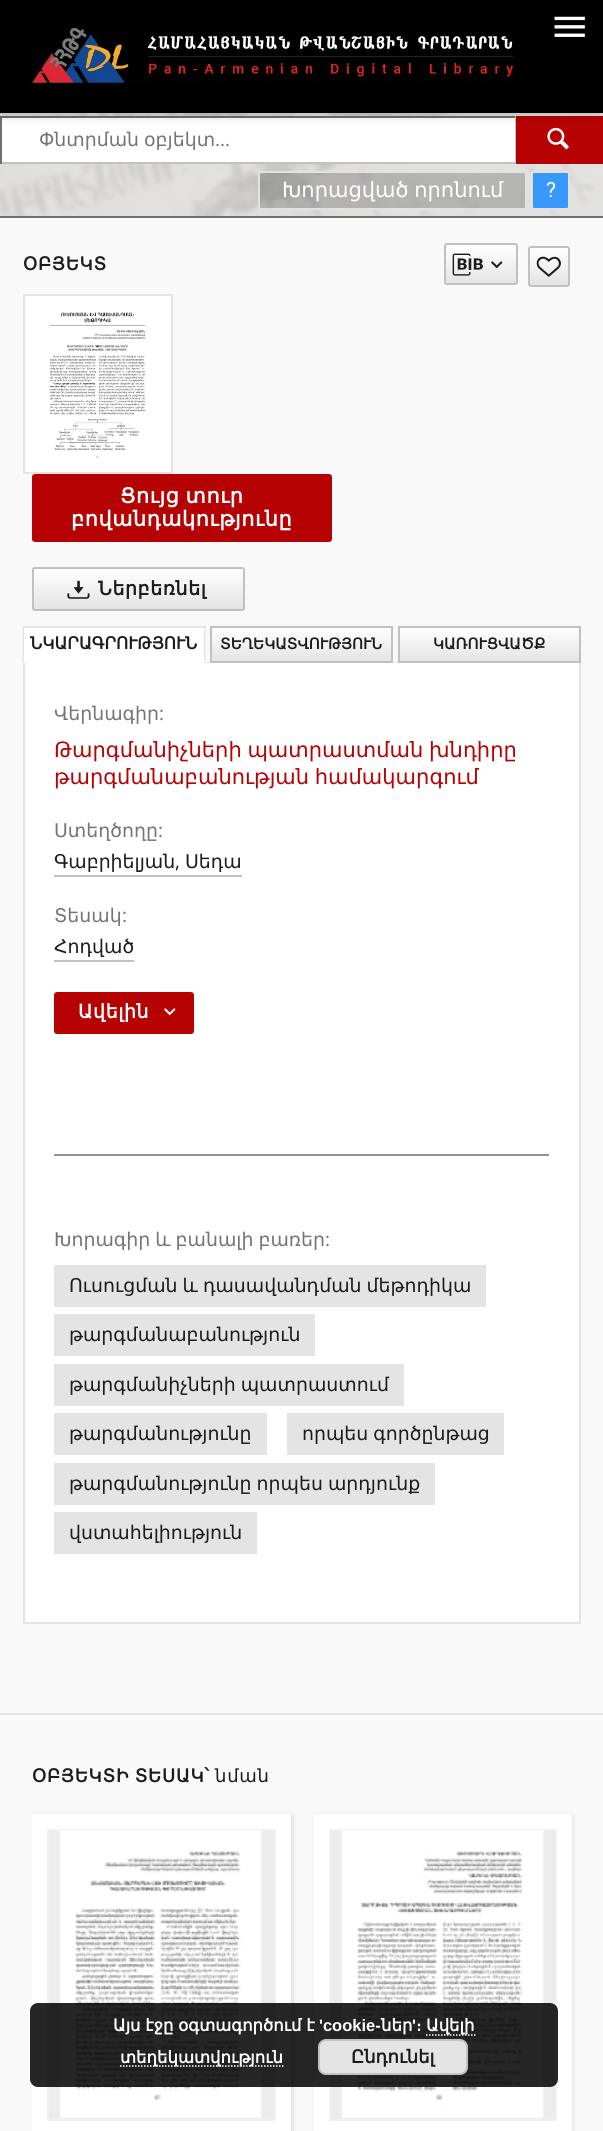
#include <cairo/cairo.h>
#include <math.h>
#include <stddef.h>

typedef struct { double x, y; const char *s; } line_t;
typedef struct { double x, y, w, h; unsigned color; } box_t;
static cairo_t *cr;

static void rgb(unsigned color)
{
	cairo_set_source_rgb(cr, (color >> 16) / 255.0, (color >> 8 & 255) / 255.0, (color & 255) / 255.0);
}

static void tracked(double x, double y, const char *s, double letter, double word)
{
	cairo_move_to(cr, x, y);
	while (*s) {
		char ch[5] = {0};
		int n = 0;
		do ch[n++] = *s++; while ((*s & 0xC0) == 0x80);
		cairo_show_text(cr, ch);
		cairo_rel_move_to(cr, letter + word * (*ch == ' '), 0);
	}
}

static void rrect(double x, double y, double w, double h, double r)
{
	cairo_new_sub_path(cr);
	cairo_arc(cr, x + w - r, y + h - r, r, 0, M_PI / 2);
	cairo_arc(cr, x + r, y + h - r, r, M_PI / 2, M_PI);
	cairo_arc(cr, x + r, y + r, r, M_PI, 1.5 * M_PI);
	cairo_arc(cr, x + w - r, y + r, r, 1.5 * M_PI, 2 * M_PI);
	cairo_close_path(cr);
}

static void soft_shadow(double x, double y, double w, double h, double r, double blur, double alpha)
{
	cairo_push_group_with_content(cr, CAIRO_CONTENT_ALPHA);
	cairo_set_operator(cr, CAIRO_OPERATOR_SOURCE);
	for (int i = 15; i >= -15 && fmin(w, h) + blur * i / 3 > 0; i -= 2) {
		double e = blur * i / 6;
		cairo_set_source_rgba(cr, 0, 0, 0, alpha * erfc((i - 1) / 8.5) / 2);
		rrect(x - e, y - e, w + 2 * e, h + 2 * e, fmax(0, fmin(r + e + blur * .6, fmin(w, h) / 2 + e)));
		cairo_fill(cr);
	}
	cairo_pattern_t *soft = cairo_pop_group(cr);
	cairo_mask(cr, soft);
	cairo_pattern_destroy(soft);
}

static void image(const char *path, double x, double y, double w, double h)
{
	cairo_surface_t *image = cairo_image_surface_create_from_png(path);
	cairo_save(cr);
	cairo_set_source_surface(cr, image, x, y);
	cairo_rectangle(cr, x, y, w, h);
	cairo_fill(cr);
	cairo_restore(cr);
	cairo_surface_destroy(image);
}

int main(void) {
	cairo_surface_t *surface = cairo_image_surface_create(CAIRO_FORMAT_RGB24, 603, 2131);
	cr = cairo_create(surface);
	cairo_font_options_t *options = cairo_font_options_create();
	cairo_font_options_set_hint_metrics(options, CAIRO_HINT_METRICS_OFF);
	cairo_font_options_set_hint_style(options, CAIRO_HINT_STYLE_NONE);
	cairo_set_font_options(cr, options);
	cairo_set_miter_limit(cr, 4);
	cairo_pattern_t *gradient;
	rgb(0xf9f9f9);
	cairo_paint(cr);
	image("img/3.png", 0, 113, 603, 103);
	{
		static const box_t items[] = {
			{2, 118, 513, 44, 0xffffff},
			{0, 116, 516, 2, 0x707070},
			{515, 116, 1, 48, 0xc1c1c1},
			{0, 162, 516, 2, 0xc1c1c1},
			{0, 116, 2, 48, 0x707070},
			{516, 116, 87, 48, 0xb70203},
		};
		for (size_t i = 0; i < sizeof items / sizeof *items; i++) {
			rgb(items[i].color);
			cairo_rectangle(cr, items[i].x, items[i].y, items[i].w, items[i].h);
			cairo_fill(cr);
		}
	}
	image("img/4.png", 547, 127, 22, 23);
	rgb(0x000000);
	soft_shadow(0, 2, 603, 112, 0, 7.5, 0.08);
	soft_shadow(0, 6, 603, 113, 0, 4, 0.06);
	soft_shadow(2, 5, 600, 109, 0, 3, 0.06);
	rgb(0x000000);
	cairo_rectangle(cr, 0, 0, 603, 113);
	cairo_fill(cr);
	image("img/1.png", 30, 28, 484, 58);
	image("img/2.png", 554, 16, 31, 21);
	rgb(0x707070);
	cairo_rectangle(cr, 0, 216, 603, 2);
	cairo_fill(cr);
	cairo_set_source_rgba(cr, 0, 0, 0, 0.2);
	rrect(259, 172, 267, 37, 2);
	cairo_fill_preserve(cr);
	rgb(0xe2e2e2);
	cairo_stroke(cr);
	rgb(0x3998fb);
	rrect(532, 172, 37, 37, 2);
	cairo_fill_preserve(cr);
	rgb(0xe2e2e2);
	cairo_stroke(cr);
	cairo_save(cr);
	rrect(444, 243, 74, 42, 3);
	cairo_clip(cr);
	gradient = cairo_pattern_create_linear(481, 245, 481, 284);
	cairo_pattern_add_color_stop_rgba(gradient, 0, 1, 1, 1, 1);
	cairo_pattern_add_color_stop_rgba(gradient, 1, 0.894, 0.894, 0.894, 1);
	cairo_set_source(cr, gradient);
	cairo_pattern_destroy(gradient);
	cairo_rectangle(cr, 444, 245, 74, 39);
	cairo_fill(cr);
	cairo_restore(cr);
	rrect(445, 244, 72, 40, 2);
	rgb(0xc1c1c1);
	cairo_stroke(cr);
	image("img/5.png", 452, 253, 31, 23);
	image("img/6.png", 491, 261, 12, 8);
	cairo_save(cr);
	rrect(528, 246, 42, 41, 3);
	cairo_clip(cr);
	gradient = cairo_pattern_create_linear(549, 248, 549, 285);
	cairo_pattern_add_color_stop_rgba(gradient, 0, 1, 1, 1, 1);
	cairo_pattern_add_color_stop_rgba(gradient, 1, 0.894, 0.894, 0.894, 1);
	cairo_set_source(cr, gradient);
	cairo_pattern_destroy(gradient);
	cairo_rectangle(cr, 528, 248, 42, 37);
	cairo_fill(cr);
	cairo_restore(cr);
	rrect(529, 247, 40, 39, 2);
	cairo_stroke(cr);
	image("img/7.png", 536, 256, 25, 21);
	rgb(0xffffff);
	cairo_rectangle(cr, 24, 295, 148, 178);
	cairo_fill_preserve(cr);
	rgb(0xe4e4e4);
	cairo_stroke(cr);
	image("img/8.png", 49, 312, 97, 146);
	rgb(0xb70203);
	rrect(33, 475, 298, 66, 2);
	cairo_fill_preserve(cr);
	cairo_stroke(cr);
	cairo_save(cr);
	rrect(32, 567, 213, 44, 3);
	cairo_clip(cr);
	gradient = cairo_pattern_create_linear(138, 569, 138, 609);
	cairo_pattern_add_color_stop_rgba(gradient, 0, 1, 1, 1, 1);
	cairo_pattern_add_color_stop_rgba(gradient, 1, 0.894, 0.894, 0.894, 1);
	cairo_set_source(cr, gradient);
	cairo_pattern_destroy(gradient);
	cairo_rectangle(cr, 32, 569, 213, 40);
	cairo_fill(cr);
	cairo_restore(cr);
	rrect(33, 568, 211, 42, 2);
	rgb(0xc1c1c1);
	cairo_stroke(cr);
	image("img/9.png", 67, 580, 23, 19);
	{
		static const box_t items[] = {
			{206, 662, 192, 1, 0xe4e4e4},
			{23, 628, 183, 35, 0xffffff},
			{23, 626, 183, 2, 0xe4e4e4},
		};
		for (size_t i = 0; i < sizeof items / sizeof *items; i++) {
			rgb(items[i].color);
			cairo_rectangle(cr, items[i].x, items[i].y, items[i].w, items[i].h);
			cairo_fill(cr);
		}
	}
	cairo_new_path(cr);
	cairo_move_to(cr, 205.5, 625.5);
	cairo_line_to(cr, 205.5, 663);
	cairo_line_to(cr, 204, 661.5);
	cairo_line_to(cr, 204, 627);
	cairo_close_path(cr);
	cairo_fill(cr);
	cairo_new_path(cr);
	cairo_move_to(cr, 22.5, 663);
	cairo_line_to(cr, 22.5, 625.5);
	cairo_line_to(cr, 24, 627);
	cairo_line_to(cr, 24, 661.5);
	cairo_close_path(cr);
	cairo_fill(cr);
	gradient = cairo_pattern_create_linear(302, 627, 302, 662);
	cairo_pattern_add_color_stop_rgba(gradient, 0, 1, 1, 1, 1);
	cairo_pattern_add_color_stop_rgba(gradient, 1, 0.894, 0.894, 0.894, 1);
	cairo_set_source(cr, gradient);
	cairo_pattern_destroy(gradient);
	cairo_rectangle(cr, 212, 628, 179, 33);
	cairo_fill(cr);
	cairo_rectangle(cr, 211, 627, 181, 35);
	rgb(0xc1c1c1);
	cairo_stroke(cr);
	gradient = cairo_pattern_create_linear(489, 627, 489, 662);
	cairo_pattern_add_color_stop_rgba(gradient, 0, 1, 1, 1, 1);
	cairo_pattern_add_color_stop_rgba(gradient, 1, 0.894, 0.894, 0.894, 1);
	cairo_set_source(cr, gradient);
	cairo_pattern_destroy(gradient);
	cairo_rectangle(cr, 400, 628, 179, 33);
	cairo_fill(cr);
	cairo_rectangle(cr, 399, 627, 181, 35);
	rgb(0xc1c1c1);
	cairo_stroke(cr);
	{
		static const box_t items[] = {
			{25, 663, 554, 959, 0xffffff},
			{579, 663, 2, 960, 0xe4e4e4},
			{23, 1622, 558, 2, 0xe4e4e4},
			{23, 663, 2, 960, 0xe4e4e4},
			{54, 875, 188, 2, 0xc1c1c1},
			{54, 960, 80, 2, 0xc1c1c1},
		};
		for (size_t i = 0; i < sizeof items / sizeof *items; i++) {
			rgb(items[i].color);
			cairo_rectangle(cr, items[i].x, items[i].y, items[i].w, items[i].h);
			cairo_fill(cr);
		}
	}
	rgb(0xb70203);
	rrect(55, 993, 138, 40, 2);
	cairo_fill_preserve(cr);
	cairo_stroke(cr);
	image("img/10.png", 164, 1008, 12, 8);
	{
		static const box_t items[] = {
			{54, 1154, 495, 2, 0x939393},
			{54, 1265, 432, 42, 0xe4e4e4},
			{54, 1314, 261, 42, 0xe4e4e4},
			{54, 1364, 350, 42, 0xe4e4e4},
			{54, 1413, 213, 42, 0xe4e4e4},
			{287, 1413, 217, 42, 0xe4e4e4},
			{54, 1463, 381, 42, 0xe4e4e4},
			{54, 1512, 203, 42, 0xe4e4e4},
			{0, 1713, 603, 2, 0xe4e4e4},
		};
		for (size_t i = 0; i < sizeof items / sizeof *items; i++) {
			rgb(items[i].color);
			cairo_rectangle(cr, items[i].x, items[i].y, items[i].w, items[i].h);
			cairo_fill(cr);
		}
	}
	cairo_save(cr);
	cairo_rectangle(cr, 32, 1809, 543, 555);
	cairo_clip(cr);
	rgb(0xdedede);
	soft_shadow(33, 1815, 260, 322, 0, 2, 1);
	cairo_restore(cr);
	rgb(0xffffff);
	cairo_rectangle(cr, 32, 1814, 259, 317);
	cairo_fill(cr);
	rgb(0xececec);
	cairo_rectangle(cr, 48, 1830, 227, 290);
	cairo_fill_preserve(cr);
	rgb(0xf1f1f1);
	cairo_stroke(cr);
	image("img/11.png", 59, 1830, 203, 288);
	rgb(0xdedede);
	soft_shadow(315, 1815, 258, 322, 0, 2, 1);
	rgb(0xffffff);
	cairo_rectangle(cr, 314, 1814, 258, 317);
	cairo_fill(cr);
	rgb(0xececec);
	cairo_rectangle(cr, 330, 1830, 226, 290);
	cairo_fill_preserve(cr);
	rgb(0xf1f1f1);
	cairo_stroke(cr);
	image("img/12.png", 341, 1830, 203, 288);
	cairo_set_source_rgba(cr, 0, 0, 0, 0.85);
	rrect(30, 2003, 528, 84, 8);
	cairo_fill(cr);
	cairo_new_path(cr);
	cairo_move_to(cr, 426, 2035);
	cairo_line_to(cr, 475.5, 2035);
	rgb(0xffffff);
	cairo_set_line_width(cr, 1.5);
	cairo_set_dash(cr, (double[]){1.5, 1.5}, 2, 0);
	cairo_stroke(cr);
	cairo_new_path(cr);
	cairo_move_to(cr, 120, 2066);
	cairo_line_to(cr, 283.5, 2066);
	cairo_stroke(cr);
	rgb(0xe4e4e4);
	rrect(319, 2040, 148, 34, 7);
	cairo_fill_preserve(cr);
	rgb(0xc1c1c1);
	cairo_set_line_width(cr, 2);
	cairo_set_dash(cr, NULL, 0, 0);
	cairo_stroke(cr);
	cairo_select_font_face(cr, "DejaVu Sans", CAIRO_FONT_SLANT_NORMAL, CAIRO_FONT_WEIGHT_NORMAL);
	cairo_set_font_size(cr, 18.9);
	rgb(0x757575);
	tracked(39, 146, "Փնտրման օբյեկտ", 0, -1);
	cairo_select_font_face(cr, "Open Sans", CAIRO_FONT_SLANT_NORMAL, CAIRO_FONT_WEIGHT_NORMAL);
	cairo_move_to(cr, 215, 146);
	cairo_show_text(cr, "...");
	cairo_select_font_face(cr, "DejaVu Sans", CAIRO_FONT_SLANT_NORMAL, CAIRO_FONT_WEIGHT_NORMAL);
	cairo_set_font_size(cr, 21);
	rgb(0xffffff);
	tracked(282, 197, "Խորացված որոնում", 0, -1);
	cairo_select_font_face(cr, "Roboto", CAIRO_FONT_SLANT_NORMAL, CAIRO_FONT_WEIGHT_NORMAL);
	cairo_move_to(cr, 546, 197);
	cairo_show_text(cr, "?");
	cairo_select_font_face(cr, "DejaVu Sans", CAIRO_FONT_SLANT_NORMAL, CAIRO_FONT_WEIGHT_BOLD);
	cairo_set_font_size(cr, 18);
	rgb(0x1c1c1c);
	tracked(23, 270, "ՕԲՅԵԿՏ", 0.75, 0);
	cairo_set_font_size(cr, 20.75);
	rgb(0xffffff);
	tracked(120, 503, "Ցույց տուր", 0.6, -1);
	tracked(71, 526, "բովանդակությունը", 0.6, 0);
	cairo_set_font_size(cr, 18.9);
	rgb(0x1c1c1c);
	tracked(98, 595, "Ներբեռնել", 0.6, 0);
	cairo_set_font_size(cr, 16.75);
	cairo_move_to(cr, 30, 649);
	cairo_show_text(cr, "ՆԿԱՐԱԳՐՈՒԹՅՈՒՆ");
	cairo_set_font_size(cr, 15.1);
	cairo_move_to(cr, 220, 649);
	cairo_show_text(cr, "ՏԵՂԵԿԱՏՎՈՒԹՅՈՒՆ");
	cairo_move_to(cr, 433, 649);
	cairo_show_text(cr, "ԿԱՌՈՒՑՎԱԾՔ");
	cairo_select_font_face(cr, "DejaVu Sans", CAIRO_FONT_SLANT_NORMAL, CAIRO_FONT_WEIGHT_NORMAL);
	cairo_set_font_size(cr, 18.9);
	rgb(0x757575);
	cairo_move_to(cr, 54, 720);
	cairo_show_text(cr, "Վերնագիր");
	cairo_select_font_face(cr, "Open Sans", CAIRO_FONT_SLANT_NORMAL, CAIRO_FONT_WEIGHT_NORMAL);
	cairo_move_to(cr, 159, 720);
	cairo_show_text(cr, ":");
	cairo_select_font_face(cr, "DejaVu Sans", CAIRO_FONT_SLANT_NORMAL, CAIRO_FONT_WEIGHT_NORMAL);
	cairo_set_font_size(cr, 21);
	rgb(0xb70203);
	tracked(54, 757, "Թարգմանիչների պատրաստման խնդիրը", 0, -1);
	tracked(54, 784, "թարգմանաբանության համակարգում", 0, -1);
	cairo_set_font_size(cr, 18.9);
	rgb(0x757575);
	cairo_move_to(cr, 54, 837);
	cairo_show_text(cr, "Ստեղծողը");
	cairo_select_font_face(cr, "Open Sans", CAIRO_FONT_SLANT_NORMAL, CAIRO_FONT_WEIGHT_NORMAL);
	cairo_move_to(cr, 158, 837);
	cairo_show_text(cr, ":");
	cairo_select_font_face(cr, "DejaVu Sans", CAIRO_FONT_SLANT_NORMAL, CAIRO_FONT_WEIGHT_NORMAL);
	rgb(0x1c1c1c);
	cairo_move_to(cr, 54, 868);
	cairo_show_text(cr, "Գաբրիելյան");
	cairo_select_font_face(cr, "Open Sans", CAIRO_FONT_SLANT_NORMAL, CAIRO_FONT_WEIGHT_NORMAL);
	cairo_move_to(cr, 175, 868);
	cairo_show_text(cr, ",");
	cairo_select_font_face(cr, "DejaVu Sans", CAIRO_FONT_SLANT_NORMAL, CAIRO_FONT_WEIGHT_NORMAL);
	cairo_move_to(cr, 185, 868);
	cairo_show_text(cr, "Սեդա");
	rgb(0x757575);
	cairo_move_to(cr, 54, 922);
	cairo_show_text(cr, "Տեսակ");
	cairo_select_font_face(cr, "Open Sans", CAIRO_FONT_SLANT_NORMAL, CAIRO_FONT_WEIGHT_NORMAL);
	cairo_move_to(cr, 122, 922);
	cairo_show_text(cr, ":");
	cairo_select_font_face(cr, "DejaVu Sans", CAIRO_FONT_SLANT_NORMAL, CAIRO_FONT_WEIGHT_NORMAL);
	rgb(0x1c1c1c);
	cairo_move_to(cr, 54, 953);
	cairo_show_text(cr, "Հոդված");
	cairo_select_font_face(cr, "DejaVu Sans", CAIRO_FONT_SLANT_NORMAL, CAIRO_FONT_WEIGHT_BOLD);
	rgb(0xffffff);
	tracked(78, 1018, "Ավելին", 0.6, 0);
	cairo_select_font_face(cr, "DejaVu Sans", CAIRO_FONT_SLANT_NORMAL, CAIRO_FONT_WEIGHT_NORMAL);
	rgb(0x757575);
	tracked(54, 1246, "Խորագիր և բանալի բառեր", 0, -1);
	cairo_select_font_face(cr, "Open Sans", CAIRO_FONT_SLANT_NORMAL, CAIRO_FONT_WEIGHT_NORMAL);
	cairo_move_to(cr, 325, 1246);
	cairo_show_text(cr, ":");
	cairo_select_font_face(cr, "DejaVu Sans", CAIRO_FONT_SLANT_NORMAL, CAIRO_FONT_WEIGHT_NORMAL);
	rgb(0x1c1c1c);
	tracked(69, 1292, "Ուսուցման և դասավանդման մեթոդիկա", 0, -1);
	cairo_move_to(cr, 69, 1341);
	cairo_show_text(cr, "թարգմանաբանություն");
	tracked(69, 1391, "թարգմանիչների պատրաստում", 0, -1);
	cairo_move_to(cr, 69, 1440);
	cairo_show_text(cr, "թարգմանությունը");
	tracked(302, 1440, "որպես գործընթաց", 0, -1);
	tracked(69, 1490, "թարգմանությունը որպես արդյունք", 0, -1);
	cairo_move_to(cr, 69, 1539);
	cairo_show_text(cr, "վստահելիություն");
	cairo_select_font_face(cr, "DejaVu Sans", CAIRO_FONT_SLANT_NORMAL, CAIRO_FONT_WEIGHT_BOLD);
	cairo_set_font_size(cr, 18);
	tracked(32, 1782, "ՕԲՅԵԿՏԻ ՏԵՍԱԿ՝", 0.75, -1);
	cairo_select_font_face(cr, "DejaVu Sans", CAIRO_FONT_SLANT_NORMAL, CAIRO_FONT_WEIGHT_NORMAL);
	tracked(215, 1782, "նման", 0.75, 0);
	cairo_select_font_face(cr, "DejaVu Sans", CAIRO_FONT_SLANT_NORMAL, CAIRO_FONT_WEIGHT_BOLD);
	cairo_set_font_size(cr, 16.5);
	rgb(0xffffff);
	tracked(113, 2031, "Այս էջը օգտագործում է", 0, -0.5);
	cairo_select_font_face(cr, "Liberation Sans", CAIRO_FONT_SLANT_NORMAL, CAIRO_FONT_WEIGHT_BOLD);
	cairo_move_to(cr, 319, 2031);
	cairo_show_text(cr, "'cookie-");
	cairo_select_font_face(cr, "DejaVu Sans", CAIRO_FONT_SLANT_NORMAL, CAIRO_FONT_WEIGHT_BOLD);
	cairo_move_to(cr, 381, 2031);
	cairo_show_text(cr, "ներ");
	cairo_select_font_face(cr, "Liberation Sans", CAIRO_FONT_SLANT_NORMAL, CAIRO_FONT_WEIGHT_BOLD);
	cairo_move_to(cr, 412, 2031);
	cairo_show_text(cr, "'");
	cairo_select_font_face(cr, "DejaVu Sans", CAIRO_FONT_SLANT_NORMAL, CAIRO_FONT_WEIGHT_BOLD);
	{
		static const line_t items[] = {
			{426, 2031, "Ավելի"},
			{416, 2031, "։"},
			{120, 2063, "տեղեկատվություն"},
		};
		for (size_t i = 0; i < sizeof items / sizeof *items; i++) {
			cairo_move_to(cr, items[i].x, items[i].y);
			cairo_show_text(cr, items[i].s);
		}
	}
	cairo_set_font_size(cr, 18);
	rgb(0x1c1c1c);
	cairo_move_to(cr, 351, 2063);
	cairo_show_text(cr, "Ընդունել");
	cairo_surface_write_to_png(surface, "page.png");
	cairo_font_options_destroy(options);
	cairo_destroy(cr);
	cairo_surface_destroy(surface);
	return 0;
}
